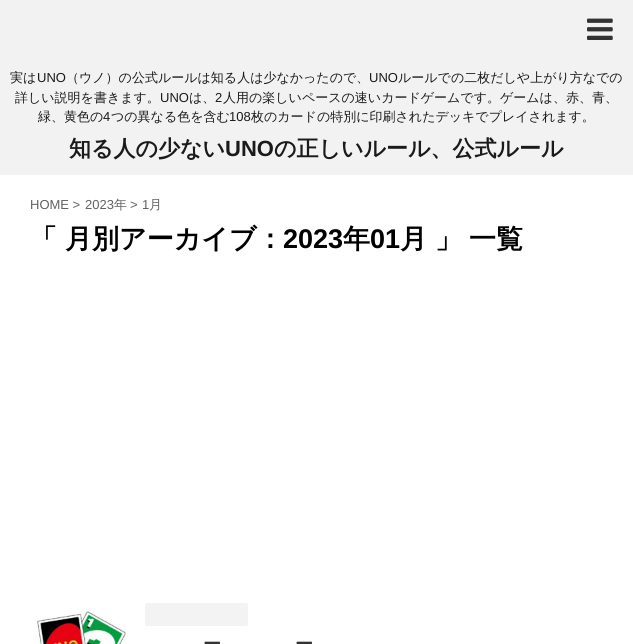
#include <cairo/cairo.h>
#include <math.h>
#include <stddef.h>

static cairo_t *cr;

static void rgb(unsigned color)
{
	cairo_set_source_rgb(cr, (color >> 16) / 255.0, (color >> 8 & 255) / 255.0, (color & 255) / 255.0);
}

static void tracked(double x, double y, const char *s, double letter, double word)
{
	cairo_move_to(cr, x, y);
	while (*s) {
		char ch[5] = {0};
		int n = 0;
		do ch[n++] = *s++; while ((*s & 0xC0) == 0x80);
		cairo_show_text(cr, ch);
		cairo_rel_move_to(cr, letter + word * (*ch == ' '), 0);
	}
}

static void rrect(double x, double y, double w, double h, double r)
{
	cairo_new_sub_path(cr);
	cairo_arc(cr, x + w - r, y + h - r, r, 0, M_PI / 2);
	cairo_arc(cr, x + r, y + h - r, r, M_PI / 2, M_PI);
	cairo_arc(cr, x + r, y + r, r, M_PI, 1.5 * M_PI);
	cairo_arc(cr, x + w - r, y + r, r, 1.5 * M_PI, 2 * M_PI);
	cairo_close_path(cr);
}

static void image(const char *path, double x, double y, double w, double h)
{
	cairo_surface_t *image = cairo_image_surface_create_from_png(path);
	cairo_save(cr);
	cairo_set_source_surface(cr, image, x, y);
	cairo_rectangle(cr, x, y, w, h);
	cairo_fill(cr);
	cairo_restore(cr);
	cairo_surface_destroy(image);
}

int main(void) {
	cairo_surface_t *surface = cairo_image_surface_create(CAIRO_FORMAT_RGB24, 633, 644);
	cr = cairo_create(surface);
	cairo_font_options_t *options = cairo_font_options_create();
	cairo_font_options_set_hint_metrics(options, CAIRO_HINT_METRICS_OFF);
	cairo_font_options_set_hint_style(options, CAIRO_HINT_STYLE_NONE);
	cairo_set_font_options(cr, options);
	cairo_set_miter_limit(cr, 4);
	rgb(0xf2f2f2);
	cairo_paint(cr);
	image("img/1.png", 587, 18, 26, 22);
	rgb(0xffffff);
	cairo_rectangle(cr, 0, 175, 633, 469);
	cairo_fill(cr);
	image("img/2.png", 36, 611, 90, 33);
	rgb(0xf3f3f3);
	rrect(145, 603, 103, 23, 2);
	cairo_fill(cr);
	cairo_select_font_face(cr, "WenQuanYi Zen Hei Medium", CAIRO_FONT_SLANT_NORMAL, CAIRO_FONT_WEIGHT_NORMAL);
	cairo_set_font_size(cr, 13);
	rgb(0x1a1a1a);
	cairo_move_to(cr, 10, 82);
	cairo_show_text(cr, "実は");
	cairo_select_font_face(cr, "Liberation Sans", CAIRO_FONT_SLANT_NORMAL, CAIRO_FONT_WEIGHT_NORMAL);
	cairo_move_to(cr, 37, 82);
	cairo_show_text(cr, "UNO");
	cairo_select_font_face(cr, "WenQuanYi Zen Hei Medium", CAIRO_FONT_SLANT_NORMAL, CAIRO_FONT_WEIGHT_NORMAL);
	cairo_move_to(cr, 66, 82);
	cairo_show_text(cr, "（ウノ）の公式ルールは知る人は少なかったので、");
	cairo_select_font_face(cr, "Liberation Sans", CAIRO_FONT_SLANT_NORMAL, CAIRO_FONT_WEIGHT_NORMAL);
	cairo_move_to(cr, 369, 82);
	cairo_show_text(cr, "UNO");
	cairo_select_font_face(cr, "WenQuanYi Zen Hei Medium", CAIRO_FONT_SLANT_NORMAL, CAIRO_FONT_WEIGHT_NORMAL);
	cairo_move_to(cr, 398, 82);
	cairo_show_text(cr, "ルールでの二枚だしや上がり方なでの");
	cairo_move_to(cr, 15, 102);
	cairo_show_text(cr, "詳しい説明を書きます。");
	cairo_select_font_face(cr, "Liberation Sans", CAIRO_FONT_SLANT_NORMAL, CAIRO_FONT_WEIGHT_NORMAL);
	cairo_move_to(cr, 160, 102);
	cairo_show_text(cr, "UNO");
	cairo_select_font_face(cr, "WenQuanYi Zen Hei Medium", CAIRO_FONT_SLANT_NORMAL, CAIRO_FONT_WEIGHT_NORMAL);
	cairo_move_to(cr, 189, 102);
	cairo_show_text(cr, "は、");
	cairo_select_font_face(cr, "Liberation Sans", CAIRO_FONT_SLANT_NORMAL, CAIRO_FONT_WEIGHT_NORMAL);
	cairo_move_to(cr, 215, 102);
	cairo_show_text(cr, "2");
	cairo_select_font_face(cr, "WenQuanYi Zen Hei Medium", CAIRO_FONT_SLANT_NORMAL, CAIRO_FONT_WEIGHT_NORMAL);
	cairo_move_to(cr, 223, 102);
	cairo_show_text(cr, "人用の楽しいペースの速いカードゲームです。ゲームは、赤、青、");
	cairo_move_to(cr, 38, 121);
	cairo_show_text(cr, "緑、黄色の");
	cairo_select_font_face(cr, "Liberation Sans", CAIRO_FONT_SLANT_NORMAL, CAIRO_FONT_WEIGHT_NORMAL);
	cairo_move_to(cr, 103, 121);
	cairo_show_text(cr, "4");
	cairo_select_font_face(cr, "WenQuanYi Zen Hei Medium", CAIRO_FONT_SLANT_NORMAL, CAIRO_FONT_WEIGHT_NORMAL);
	cairo_move_to(cr, 111, 121);
	cairo_show_text(cr, "つの異なる色を含む");
	cairo_select_font_face(cr, "Liberation Sans", CAIRO_FONT_SLANT_NORMAL, CAIRO_FONT_WEIGHT_NORMAL);
	cairo_move_to(cr, 229, 121);
	cairo_show_text(cr, "108");
	cairo_select_font_face(cr, "WenQuanYi Zen Hei Medium", CAIRO_FONT_SLANT_NORMAL, CAIRO_FONT_WEIGHT_NORMAL);
	cairo_move_to(cr, 251, 121);
	cairo_show_text(cr, "枚のカードの特別に印刷されたデッキでプレイされます。");
	cairo_select_font_face(cr, "WenQuanYi Zen Hei", CAIRO_FONT_SLANT_NORMAL, CAIRO_FONT_WEIGHT_BOLD);
	cairo_set_font_size(cr, 22);
	cairo_move_to(cr, 69, 156);
	cairo_show_text(cr, "知る人の少ない");
	cairo_select_font_face(cr, "Liberation Sans", CAIRO_FONT_SLANT_NORMAL, CAIRO_FONT_WEIGHT_BOLD);
	cairo_move_to(cr, 225, 156);
	cairo_show_text(cr, "UNO");
	cairo_select_font_face(cr, "WenQuanYi Zen Hei", CAIRO_FONT_SLANT_NORMAL, CAIRO_FONT_WEIGHT_BOLD);
	cairo_move_to(cr, 274, 156);
	cairo_show_text(cr, "の正しいルール、公式ルール");
	cairo_select_font_face(cr, "Liberation Sans", CAIRO_FONT_SLANT_NORMAL, CAIRO_FONT_WEIGHT_NORMAL);
	cairo_set_font_size(cr, 13);
	rgb(0x616161);
	cairo_move_to(cr, 30, 209);
	cairo_show_text(cr, "HOME >");
	cairo_move_to(cr, 85, 209);
	cairo_show_text(cr, "2023");
	cairo_select_font_face(cr, "WenQuanYi Zen Hei Medium", CAIRO_FONT_SLANT_NORMAL, CAIRO_FONT_WEIGHT_NORMAL);
	cairo_move_to(cr, 114, 209);
	cairo_show_text(cr, "年");
	cairo_select_font_face(cr, "Liberation Sans", CAIRO_FONT_SLANT_NORMAL, CAIRO_FONT_WEIGHT_NORMAL);
	cairo_move_to(cr, 130, 209);
	cairo_show_text(cr, ">");
	cairo_move_to(cr, 142, 209);
	cairo_show_text(cr, "1");
	cairo_select_font_face(cr, "WenQuanYi Zen Hei Medium", CAIRO_FONT_SLANT_NORMAL, CAIRO_FONT_WEIGHT_NORMAL);
	cairo_move_to(cr, 149, 209);
	cairo_show_text(cr, "月");
	cairo_select_font_face(cr, "WenQuanYi Zen Hei", CAIRO_FONT_SLANT_NORMAL, CAIRO_FONT_WEIGHT_BOLD);
	cairo_set_font_size(cr, 27);
	rgb(0x000000);
	cairo_move_to(cr, 30, 248);
	cairo_show_text(cr, "「");
	cairo_move_to(cr, 65, 248);
	cairo_show_text(cr, "月別アーカイブ：");
	cairo_select_font_face(cr, "Liberation Sans", CAIRO_FONT_SLANT_NORMAL, CAIRO_FONT_WEIGHT_BOLD);
	cairo_move_to(cr, 283, 248);
	cairo_show_text(cr, "2023");
	cairo_select_font_face(cr, "WenQuanYi Zen Hei", CAIRO_FONT_SLANT_NORMAL, CAIRO_FONT_WEIGHT_BOLD);
	cairo_move_to(cr, 343, 248);
	cairo_show_text(cr, "年");
	cairo_select_font_face(cr, "Liberation Sans", CAIRO_FONT_SLANT_NORMAL, CAIRO_FONT_WEIGHT_BOLD);
	cairo_move_to(cr, 370, 248);
	cairo_show_text(cr, "01");
	cairo_select_font_face(cr, "WenQuanYi Zen Hei", CAIRO_FONT_SLANT_NORMAL, CAIRO_FONT_WEIGHT_BOLD);
	cairo_move_to(cr, 400, 248);
	cairo_show_text(cr, "月");
	tracked(435, 248, "」 一覧", 0, -1);
	cairo_set_font_size(cr, 18);
	rgb(0x333333);
	cairo_move_to(cr, 203, 650);
	cairo_show_text(cr, "ー");
	cairo_move_to(cr, 295, 650);
	cairo_show_text(cr, "ー");
	cairo_surface_write_to_png(surface, "page.png");
	cairo_font_options_destroy(options);
	cairo_destroy(cr);
	cairo_surface_destroy(surface);
	return 0;
}
